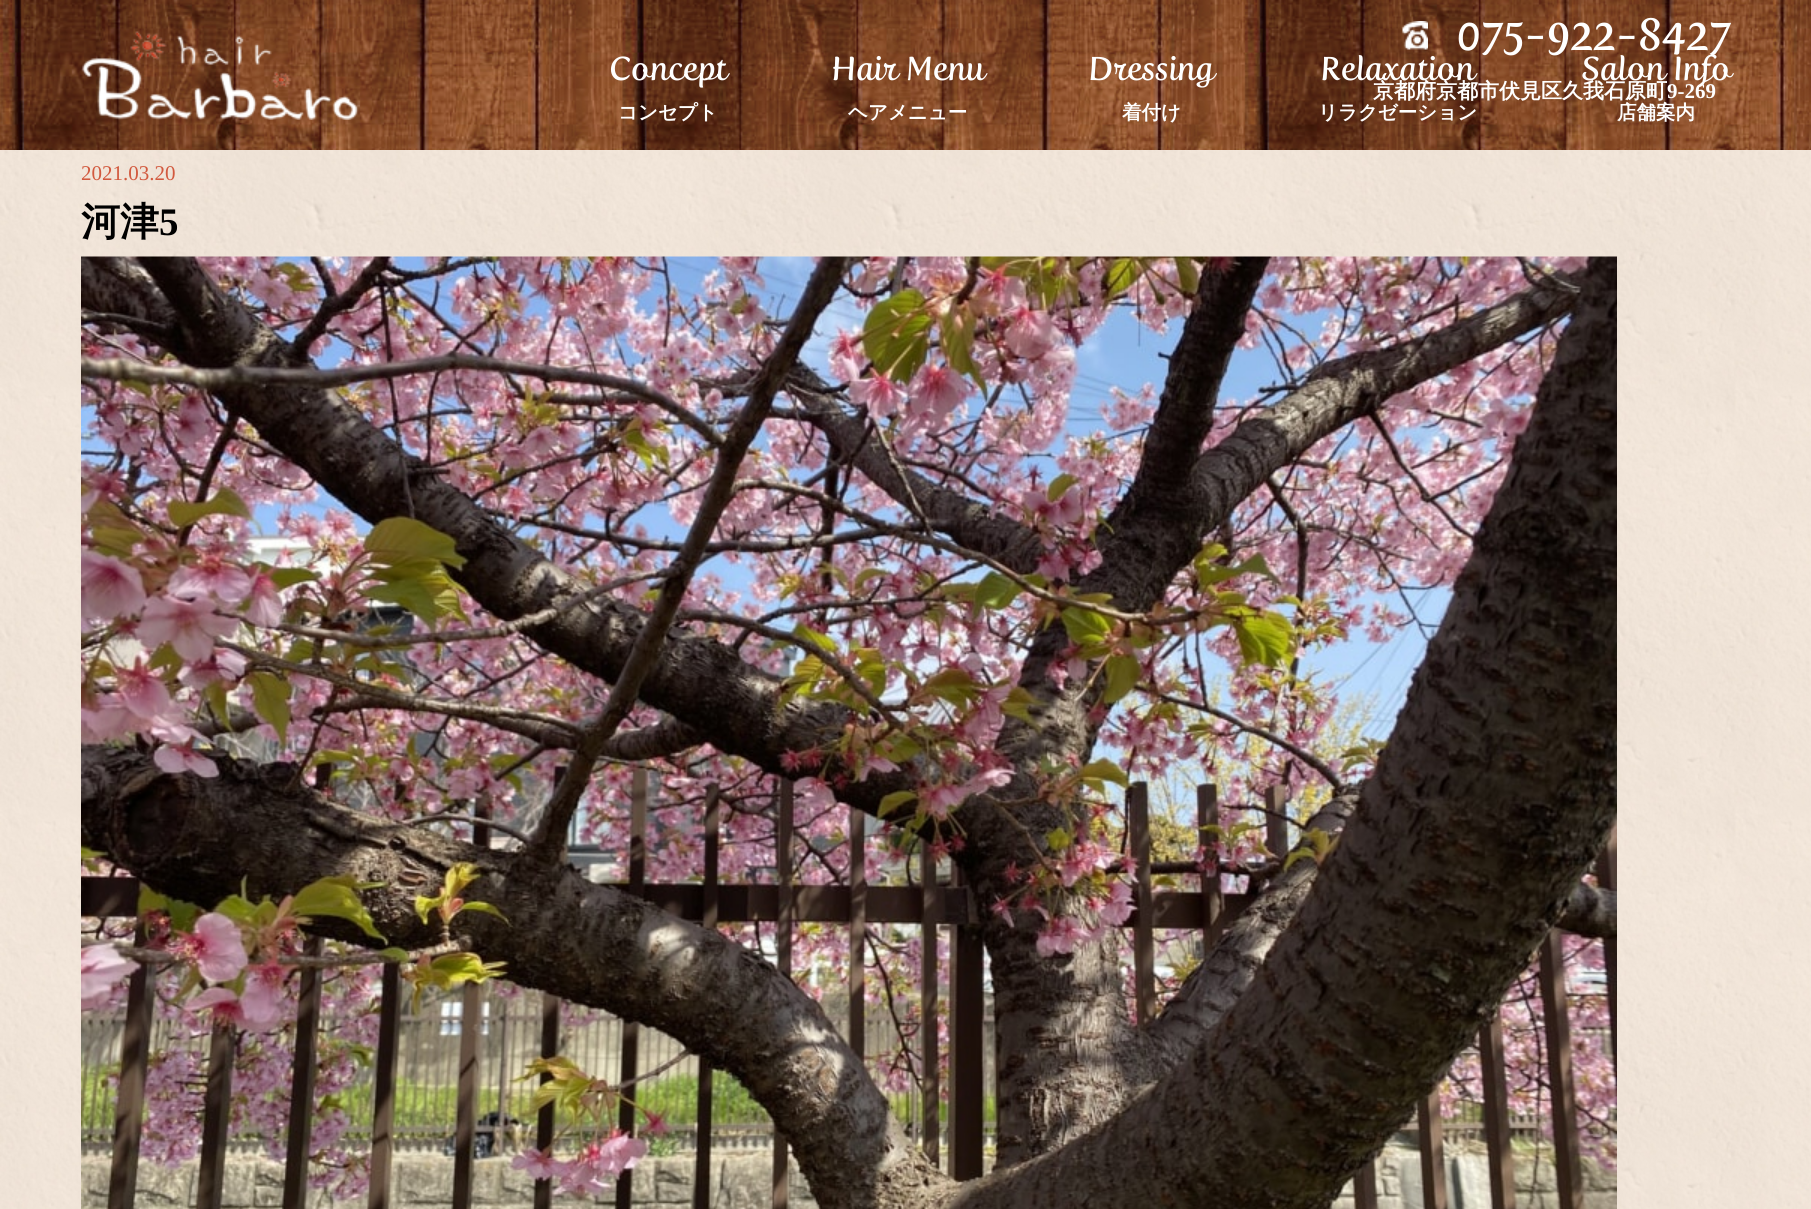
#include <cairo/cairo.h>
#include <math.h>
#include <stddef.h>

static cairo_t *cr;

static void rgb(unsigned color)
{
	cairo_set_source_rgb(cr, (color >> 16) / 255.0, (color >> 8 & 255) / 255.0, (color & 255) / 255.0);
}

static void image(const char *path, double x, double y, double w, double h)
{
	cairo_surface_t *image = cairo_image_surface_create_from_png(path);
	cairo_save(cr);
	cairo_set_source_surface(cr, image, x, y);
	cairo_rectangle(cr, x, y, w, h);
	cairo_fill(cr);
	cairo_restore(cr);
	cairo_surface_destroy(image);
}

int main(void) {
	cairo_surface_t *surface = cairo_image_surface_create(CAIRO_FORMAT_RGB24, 1811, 1209);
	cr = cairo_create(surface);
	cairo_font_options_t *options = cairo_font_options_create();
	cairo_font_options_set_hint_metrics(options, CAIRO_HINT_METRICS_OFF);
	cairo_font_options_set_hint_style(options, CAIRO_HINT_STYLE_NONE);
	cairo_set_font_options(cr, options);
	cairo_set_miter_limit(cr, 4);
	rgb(0xffffff);
	cairo_paint(cr);
	image("img/1.png", 0, 150, 1811, 1059);
	image("img/3.png", 0, 0, 1811, 150);
	image("img/2.png", 1402, 21, 26, 29);
	image("img/4.png", 81, 31, 279, 89);
	image("img/5.png", 81, 256, 1536, 953);
	cairo_select_font_face(cr, "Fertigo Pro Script", CAIRO_FONT_SLANT_NORMAL, CAIRO_FONT_WEIGHT_NORMAL);
	cairo_set_font_size(cr, 45);
	rgb(0xffffff);
	cairo_move_to(cr, 1456, 50);
	cairo_show_text(cr, "075-922-8427");
	cairo_select_font_face(cr, "WenQuanYi Zen Hei", CAIRO_FONT_SLANT_NORMAL, CAIRO_FONT_WEIGHT_BOLD);
	cairo_set_font_size(cr, 21);
	cairo_move_to(cr, 1373, 98);
	cairo_show_text(cr, "京都府京都市伏⾒区久我⽯原町");
	cairo_select_font_face(cr, "Liberation Serif", CAIRO_FONT_SLANT_NORMAL, CAIRO_FONT_WEIGHT_BOLD);
	cairo_move_to(cr, 1667, 98);
	cairo_show_text(cr, "9-269");
	cairo_select_font_face(cr, "Fertigo Pro Script", CAIRO_FONT_SLANT_NORMAL, CAIRO_FONT_WEIGHT_NORMAL);
	cairo_set_font_size(cr, 33);
	cairo_move_to(cr, 609, 80);
	cairo_show_text(cr, "Concept");
	cairo_select_font_face(cr, "WenQuanYi Zen Hei", CAIRO_FONT_SLANT_NORMAL, CAIRO_FONT_WEIGHT_BOLD);
	cairo_set_font_size(cr, 19.5);
	cairo_move_to(cr, 618, 119);
	cairo_show_text(cr, "コンセプト");
	cairo_select_font_face(cr, "Fertigo Pro Script", CAIRO_FONT_SLANT_NORMAL, CAIRO_FONT_WEIGHT_NORMAL);
	cairo_set_font_size(cr, 33);
	cairo_move_to(cr, 831, 80);
	cairo_show_text(cr, "Hair Menu");
	cairo_select_font_face(cr, "WenQuanYi Zen Hei", CAIRO_FONT_SLANT_NORMAL, CAIRO_FONT_WEIGHT_BOLD);
	cairo_set_font_size(cr, 19.5);
	cairo_move_to(cr, 848, 119);
	cairo_show_text(cr, "ヘアメニュー");
	cairo_select_font_face(cr, "Fertigo Pro Script", CAIRO_FONT_SLANT_NORMAL, CAIRO_FONT_WEIGHT_NORMAL);
	cairo_set_font_size(cr, 33);
	cairo_move_to(cr, 1088, 80);
	cairo_show_text(cr, "Dressing");
	cairo_select_font_face(cr, "WenQuanYi Zen Hei", CAIRO_FONT_SLANT_NORMAL, CAIRO_FONT_WEIGHT_BOLD);
	cairo_set_font_size(cr, 19.5);
	cairo_move_to(cr, 1122, 119);
	cairo_show_text(cr, "着付け");
	cairo_select_font_face(cr, "Fertigo Pro Script", CAIRO_FONT_SLANT_NORMAL, CAIRO_FONT_WEIGHT_NORMAL);
	cairo_set_font_size(cr, 33);
	cairo_move_to(cr, 1320, 80);
	cairo_show_text(cr, "Relaxation");
	cairo_select_font_face(cr, "WenQuanYi Zen Hei", CAIRO_FONT_SLANT_NORMAL, CAIRO_FONT_WEIGHT_BOLD);
	cairo_set_font_size(cr, 19.5);
	cairo_move_to(cr, 1318, 119);
	cairo_show_text(cr, "リラクゼーション");
	cairo_select_font_face(cr, "Fertigo Pro Script", CAIRO_FONT_SLANT_NORMAL, CAIRO_FONT_WEIGHT_NORMAL);
	cairo_set_font_size(cr, 33);
	cairo_move_to(cr, 1581, 80);
	cairo_show_text(cr, "Salon Info");
	cairo_select_font_face(cr, "WenQuanYi Zen Hei", CAIRO_FONT_SLANT_NORMAL, CAIRO_FONT_WEIGHT_BOLD);
	cairo_set_font_size(cr, 19.5);
	cairo_move_to(cr, 1617, 119);
	cairo_show_text(cr, "店舗案内");
	cairo_select_font_face(cr, "Liberation Serif", CAIRO_FONT_SLANT_NORMAL, CAIRO_FONT_WEIGHT_NORMAL);
	cairo_set_font_size(cr, 21);
	rgb(0xd2593e);
	cairo_move_to(cr, 81, 180);
	cairo_show_text(cr, "2021.03.20");
	cairo_select_font_face(cr, "WenQuanYi Zen Hei", CAIRO_FONT_SLANT_NORMAL, CAIRO_FONT_WEIGHT_BOLD);
	cairo_set_font_size(cr, 39);
	rgb(0x000000);
	cairo_move_to(cr, 81, 235);
	cairo_show_text(cr, "河津");
	cairo_select_font_face(cr, "Liberation Serif", CAIRO_FONT_SLANT_NORMAL, CAIRO_FONT_WEIGHT_BOLD);
	cairo_move_to(cr, 159, 235);
	cairo_show_text(cr, "5");
	cairo_surface_write_to_png(surface, "page.png");
	cairo_font_options_destroy(options);
	cairo_destroy(cr);
	cairo_surface_destroy(surface);
	return 0;
}
